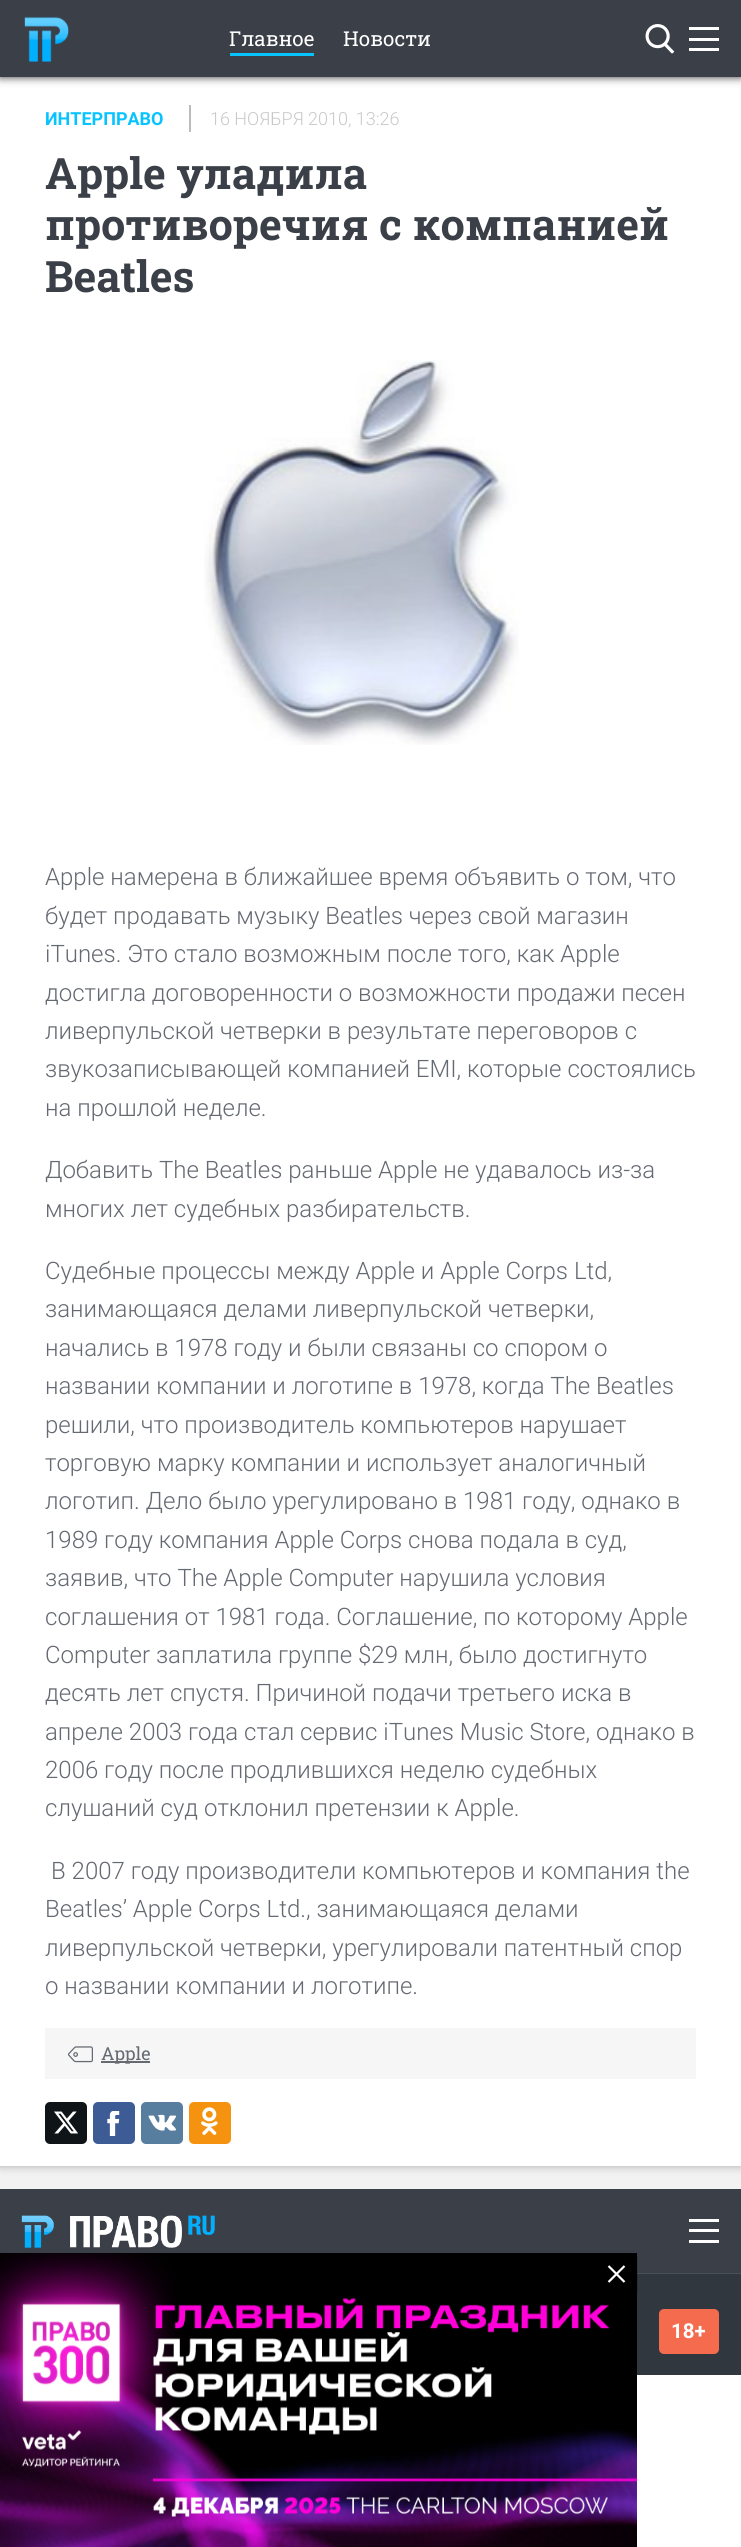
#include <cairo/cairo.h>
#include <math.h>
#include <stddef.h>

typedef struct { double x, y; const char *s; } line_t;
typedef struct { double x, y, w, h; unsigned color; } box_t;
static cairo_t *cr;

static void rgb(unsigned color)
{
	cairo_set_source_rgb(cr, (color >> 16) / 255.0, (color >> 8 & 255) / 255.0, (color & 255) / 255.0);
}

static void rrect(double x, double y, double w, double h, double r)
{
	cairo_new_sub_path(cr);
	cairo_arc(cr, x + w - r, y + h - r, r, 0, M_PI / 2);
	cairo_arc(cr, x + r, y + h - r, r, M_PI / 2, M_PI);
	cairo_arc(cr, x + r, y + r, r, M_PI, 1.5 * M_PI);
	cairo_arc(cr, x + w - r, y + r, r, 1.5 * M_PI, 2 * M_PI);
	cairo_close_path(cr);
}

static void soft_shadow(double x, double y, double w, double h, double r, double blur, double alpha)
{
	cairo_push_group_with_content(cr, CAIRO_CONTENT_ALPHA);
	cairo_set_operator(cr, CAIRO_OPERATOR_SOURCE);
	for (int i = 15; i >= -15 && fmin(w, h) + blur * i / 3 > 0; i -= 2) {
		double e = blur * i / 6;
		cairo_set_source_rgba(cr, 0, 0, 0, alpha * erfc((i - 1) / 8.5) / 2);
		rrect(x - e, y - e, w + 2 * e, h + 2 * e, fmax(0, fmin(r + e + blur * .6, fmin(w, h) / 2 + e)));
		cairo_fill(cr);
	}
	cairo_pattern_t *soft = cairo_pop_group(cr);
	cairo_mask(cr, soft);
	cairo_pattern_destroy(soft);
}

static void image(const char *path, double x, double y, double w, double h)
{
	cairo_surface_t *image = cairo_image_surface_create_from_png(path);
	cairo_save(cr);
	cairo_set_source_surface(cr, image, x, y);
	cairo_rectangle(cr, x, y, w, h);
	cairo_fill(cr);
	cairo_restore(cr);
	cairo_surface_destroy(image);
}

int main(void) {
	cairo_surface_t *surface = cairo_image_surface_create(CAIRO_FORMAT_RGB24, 741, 2547);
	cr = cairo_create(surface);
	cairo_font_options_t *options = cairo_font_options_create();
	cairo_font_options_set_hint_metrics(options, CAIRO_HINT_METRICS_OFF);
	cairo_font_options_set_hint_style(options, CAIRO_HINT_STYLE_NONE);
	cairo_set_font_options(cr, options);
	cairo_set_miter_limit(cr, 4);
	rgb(0xffffff);
	cairo_paint(cr);
	rgb(0xf2f2f2);
	cairo_rectangle(cr, 0, 2166, 741, 23);
	cairo_fill(cr);
	rgb(0x000000);
	soft_shadow(0, 77, 741, 2089, 0, 4.5, 0.3);
	rgb(0xffffff);
	cairo_rectangle(cr, 0, 77, 741, 2089);
	cairo_fill(cr);
	rgb(0x000000);
	soft_shadow(0, 0, 741, 77, 0, 4.5, 0.8);
	rgb(0x3b4048);
	cairo_rectangle(cr, 0, 0, 741, 77);
	cairo_fill(cr);
	image("img/1.png", 24, 16, 45, 46);
	rgb(0x07c3ff);
	cairo_rectangle(cr, 230, 53, 84, 3);
	cairo_fill(cr);
	image("img/2.png", 645, 24, 30, 30);
	{
		static const box_t items[] = {
			{689, 48, 30, 3, 0xfefefe},
			{689, 38, 30, 3, 0xfefefe},
			{689, 27, 30, 3, 0xfefefe},
			{189, 105, 2, 27, 0xbcbcbc},
		};
		for (size_t i = 0; i < sizeof items / sizeof *items; i++) {
			rgb(items[i].color);
			cairo_rectangle(cr, items[i].x, items[i].y, items[i].w, items[i].h);
			cairo_fill(cr);
		}
	}
	image("img/3.png", 204, 359, 315, 386);
	rgb(0xf6f6f6);
	cairo_rectangle(cr, 45, 2028, 651, 51);
	cairo_fill(cr);
	image("img/4.png", 68, 2046, 25, 17);
	rgb(0x656971);
	cairo_rectangle(cr, 101, 2061, 49, 2);
	cairo_fill(cr);
	rgb(0x0f1419);
	rrect(45, 2102, 42, 42, 5);
	cairo_fill(cr);
	image("img/5.png", 54, 2111, 24, 23);
	rgb(0x3d5b95);
	rrect(93, 2102, 42, 42, 5);
	cairo_fill(cr);
	image("img/6.png", 107, 2111, 13, 25);
	rgb(0x587e9f);
	rrect(141, 2102, 42, 42, 5);
	cairo_fill(cr);
	image("img/7.png", 148, 2114, 28, 17);
	rgb(0xf59310);
	rrect(189, 2102, 42, 42, 5);
	cairo_fill(cr);
	image("img/8.png", 201, 2107, 17, 28);
	rgb(0x3b4048);
	cairo_rectangle(cr, 0, 2189, 741, 84);
	cairo_fill(cr);
	rgb(0x4b4f56);
	cairo_rectangle(cr, 637, 2273, 104, 1);
	cairo_fill(cr);
	image("img/9.png", 21, 2215, 194, 33);
	{
		static const box_t items[] = {
			{689, 2240, 30, 3, 0xfefefe},
			{689, 2229, 30, 3, 0xfefefe},
			{689, 2219, 30, 3, 0xfefefe},
			{637, 2274, 104, 101, 0x31373f},
		};
		for (size_t i = 0; i < sizeof items / sizeof *items; i++) {
			rgb(items[i].color);
			cairo_rectangle(cr, items[i].x, items[i].y, items[i].w, items[i].h);
			cairo_fill(cr);
		}
	}
	rgb(0xf46c4d);
	rrect(659, 2309, 60, 45, 5);
	cairo_fill(cr);
	image("img/10.png", 0, 2253, 637, 294);
	cairo_set_source_rgba(cr, 0, 0, 0, 0.15);
	rrect(596, 2253, 42, 42, 5);
	cairo_fill(cr);
	cairo_new_path(cr);
	cairo_move_to(cr, 608.5, 2266);
	cairo_line_to(cr, 624.5, 2282);
	cairo_move_to(cr, 624.5, 2266);
	cairo_line_to(cr, 608.5, 2282);
	rgb(0xffffff);
	cairo_set_line_width(cr, 2.2);
	cairo_stroke(cr);
	cairo_select_font_face(cr, "Roboto Slab", CAIRO_FONT_SLANT_NORMAL, CAIRO_FONT_WEIGHT_NORMAL);
	cairo_set_font_size(cr, 20.5);
	cairo_move_to(cr, 229, 46);
	cairo_show_text(cr, "Главное");
	cairo_move_to(cr, 343, 46);
	cairo_show_text(cr, "Новости");
	cairo_select_font_face(cr, "Roboto", CAIRO_FONT_SLANT_NORMAL, CAIRO_FONT_WEIGHT_BOLD);
	cairo_set_font_size(cr, 18);
	rgb(0x07c3ff);
	cairo_move_to(cr, 45, 125);
	cairo_show_text(cr, "ИНТЕРПРАВО");
	cairo_select_font_face(cr, "Roboto Light", CAIRO_FONT_SLANT_NORMAL, CAIRO_FONT_WEIGHT_NORMAL);
	rgb(0xc8c8c8);
	cairo_move_to(cr, 210, 125);
	cairo_show_text(cr, "16 НОЯБРЯ 2010, 13:26");
	cairo_select_font_face(cr, "Roboto Slab", CAIRO_FONT_SLANT_NORMAL, CAIRO_FONT_WEIGHT_BOLD);
	cairo_set_font_size(cr, 43.25);
	rgb(0x3b4048);
	{
		static const line_t items[] = {
			{45, 189, "Apple уладила"},
			{45, 240, "противоречия с компанией"},
			{45, 292, "Beatles"},
		};
		for (size_t i = 0; i < sizeof items / sizeof *items; i++) {
			cairo_move_to(cr, items[i].x, items[i].y);
			cairo_show_text(cr, items[i].s);
		}
	}
	cairo_select_font_face(cr, "Roboto Light", CAIRO_FONT_SLANT_NORMAL, CAIRO_FONT_WEIGHT_NORMAL);
	cairo_set_font_size(cr, 24);
	rgb(0x656971);
	{
		static const line_t items[] = {
			{45, 885, "Apple намерена в ближайшее время объявить о том, что"},
			{45, 924, "будет продавать музыку Beatles через свой магазин"},
			{45, 962, "iTunes. Это стало возможным после того, как Apple"},
			{45, 1001, "достигла договоренности о возможности продажи песен"},
			{45, 1039, "ливерпульской четверки в результате переговоров с"},
			{45, 1077, "звукозаписывающей компанией EMI, которые состоялись"},
			{45, 1116, "на прошлой неделе."},
			{45, 1178, "Добавить The Beatles раньше Apple не удавалось из-за"},
			{45, 1217, "многих лет судебных разбирательств."},
			{45, 1279, "Судебные процессы между Apple и Apple Corps Ltd,"},
			{45, 1317, "занимающаяся делами ливерпульской четверки,"},
			{45, 1356, "начались в 1978 году и были связаны со спором о"},
			{45, 1394, "названии компании и логотипе в 1978, когда The Beatles"},
			{45, 1433, "решили, что производитель компьютеров нарушает"},
			{45, 1471, "торговую марку компании и использует аналогичный"},
			{45, 1509, "логотип. Дело было урегулировано в 1981 году, однако в"},
			{45, 1548, "1989 году компания Apple Corps снова подала в суд,"},
			{45, 1586, "заявив, что The Apple Computer нарушила условия"},
			{45, 1625, "соглашения от 1981 года. Соглашение, по которому Apple"},
			{45, 1663, "Computer заплатила группе $29 млн, было достигнуто"},
			{45, 1701, "десять лет спустя. Причиной подачи третьего иска в"},
			{45, 1740, "апреле 2003 года стал сервис iTunes Music Store, однако в"},
			{45, 1778, "2006 году после продлившихся неделю судебных"},
			{45, 1816, "слушаний суд отклонил претензии к Apple."},
			{51, 1879, "В 2007 году производители компьютеров и компания the"},
			{45, 1917, "Beatles’ Apple Corps Ltd., занимающаяся делами"},
			{45, 1956, "ливерпульской четверки, урегулировали патентный спор"},
			{45, 1994, "о названии компании и логотипе."},
		};
		for (size_t i = 0; i < sizeof items / sizeof *items; i++) {
			cairo_move_to(cr, items[i].x, items[i].y);
			cairo_show_text(cr, items[i].s);
		}
	}
	cairo_select_font_face(cr, "Roboto Slab", CAIRO_FONT_SLANT_NORMAL, CAIRO_FONT_WEIGHT_NORMAL);
	cairo_set_font_size(cr, 18);
	cairo_move_to(cr, 101, 2060);
	cairo_show_text(cr, "Apple");
	cairo_select_font_face(cr, "Roboto", CAIRO_FONT_SLANT_NORMAL, CAIRO_FONT_WEIGHT_BOLD);
	cairo_set_font_size(cr, 20.5);
	rgb(0xffffff);
	cairo_move_to(cr, 671, 2338);
	cairo_show_text(cr, "18+");
	cairo_surface_write_to_png(surface, "page.png");
	cairo_font_options_destroy(options);
	cairo_destroy(cr);
	cairo_surface_destroy(surface);
	return 0;
}
